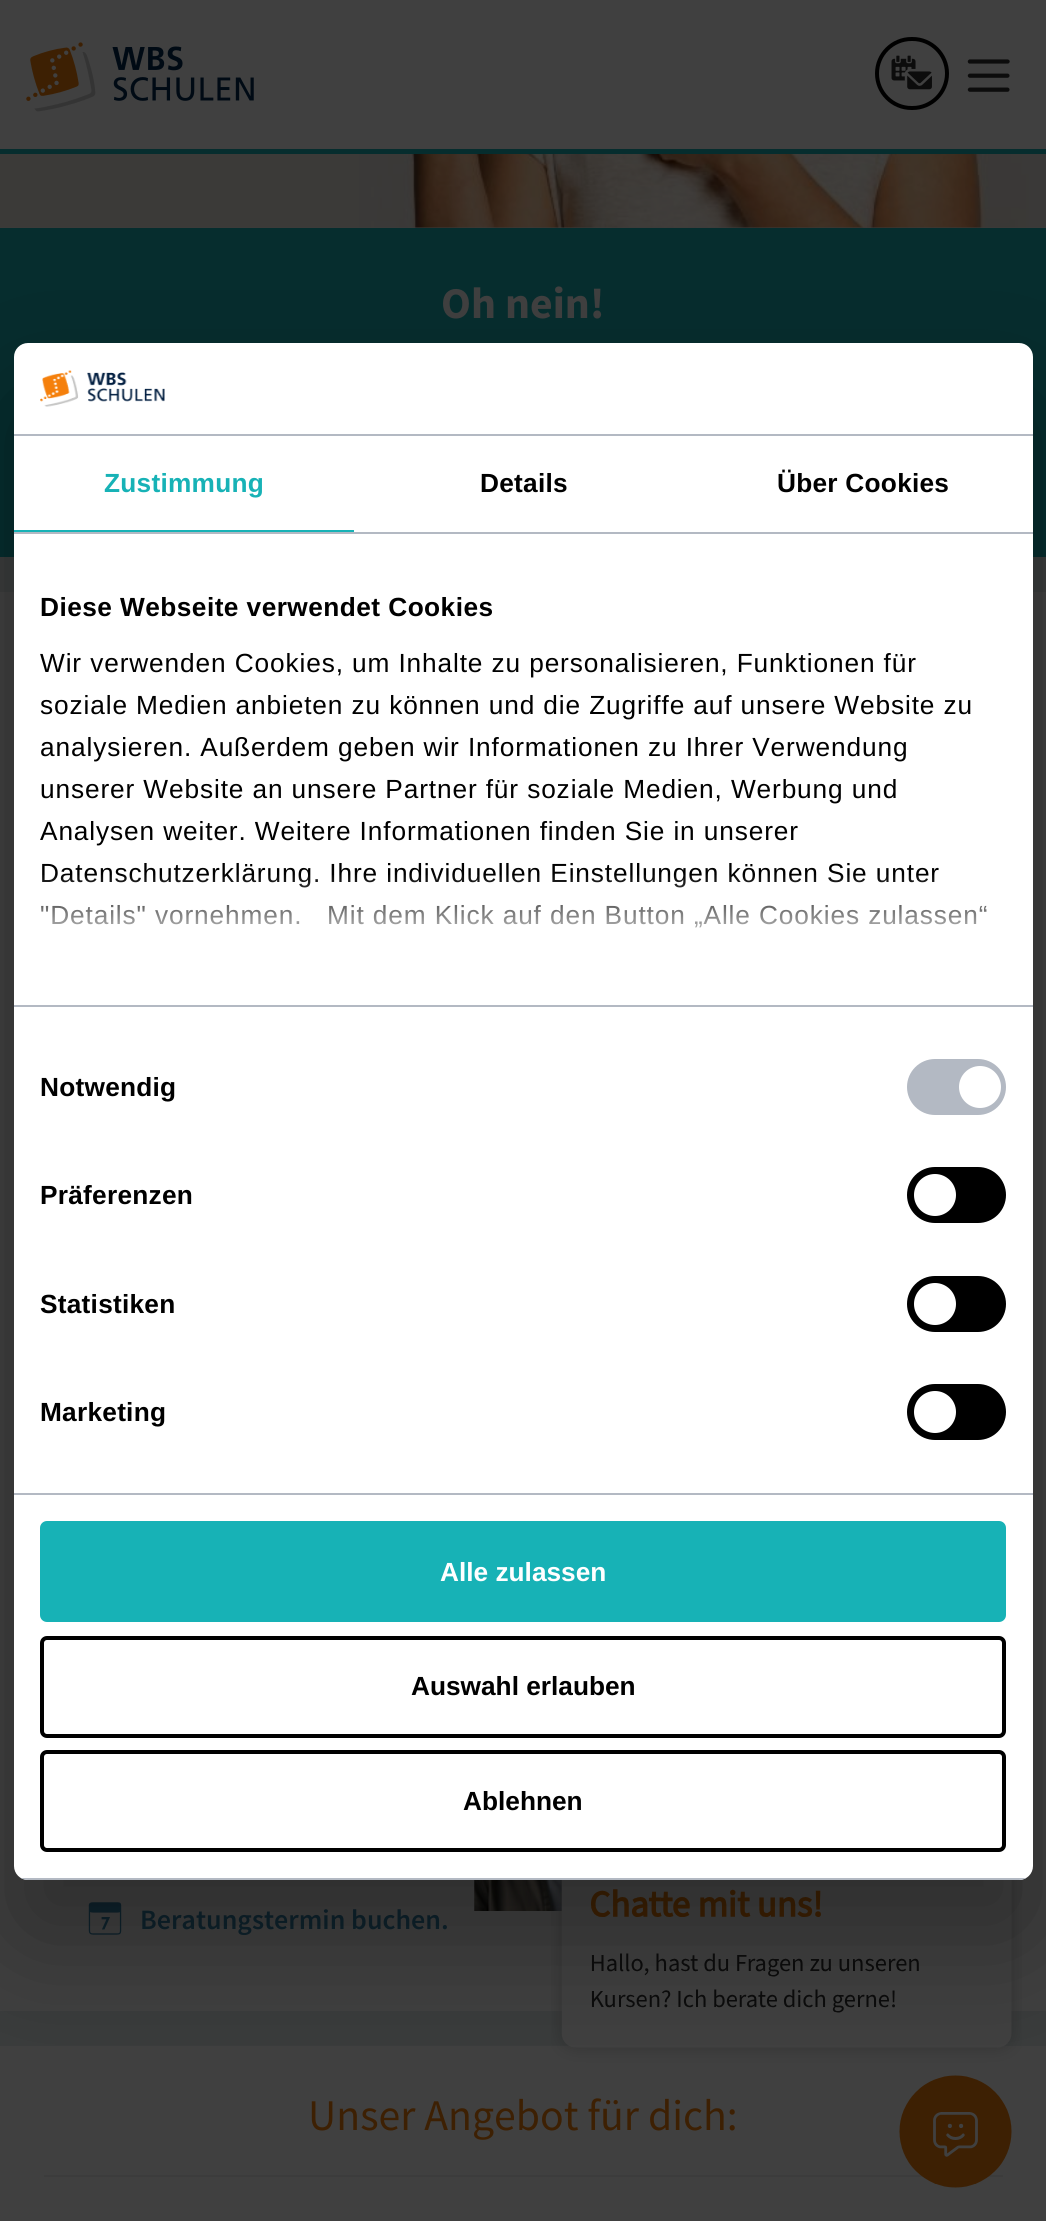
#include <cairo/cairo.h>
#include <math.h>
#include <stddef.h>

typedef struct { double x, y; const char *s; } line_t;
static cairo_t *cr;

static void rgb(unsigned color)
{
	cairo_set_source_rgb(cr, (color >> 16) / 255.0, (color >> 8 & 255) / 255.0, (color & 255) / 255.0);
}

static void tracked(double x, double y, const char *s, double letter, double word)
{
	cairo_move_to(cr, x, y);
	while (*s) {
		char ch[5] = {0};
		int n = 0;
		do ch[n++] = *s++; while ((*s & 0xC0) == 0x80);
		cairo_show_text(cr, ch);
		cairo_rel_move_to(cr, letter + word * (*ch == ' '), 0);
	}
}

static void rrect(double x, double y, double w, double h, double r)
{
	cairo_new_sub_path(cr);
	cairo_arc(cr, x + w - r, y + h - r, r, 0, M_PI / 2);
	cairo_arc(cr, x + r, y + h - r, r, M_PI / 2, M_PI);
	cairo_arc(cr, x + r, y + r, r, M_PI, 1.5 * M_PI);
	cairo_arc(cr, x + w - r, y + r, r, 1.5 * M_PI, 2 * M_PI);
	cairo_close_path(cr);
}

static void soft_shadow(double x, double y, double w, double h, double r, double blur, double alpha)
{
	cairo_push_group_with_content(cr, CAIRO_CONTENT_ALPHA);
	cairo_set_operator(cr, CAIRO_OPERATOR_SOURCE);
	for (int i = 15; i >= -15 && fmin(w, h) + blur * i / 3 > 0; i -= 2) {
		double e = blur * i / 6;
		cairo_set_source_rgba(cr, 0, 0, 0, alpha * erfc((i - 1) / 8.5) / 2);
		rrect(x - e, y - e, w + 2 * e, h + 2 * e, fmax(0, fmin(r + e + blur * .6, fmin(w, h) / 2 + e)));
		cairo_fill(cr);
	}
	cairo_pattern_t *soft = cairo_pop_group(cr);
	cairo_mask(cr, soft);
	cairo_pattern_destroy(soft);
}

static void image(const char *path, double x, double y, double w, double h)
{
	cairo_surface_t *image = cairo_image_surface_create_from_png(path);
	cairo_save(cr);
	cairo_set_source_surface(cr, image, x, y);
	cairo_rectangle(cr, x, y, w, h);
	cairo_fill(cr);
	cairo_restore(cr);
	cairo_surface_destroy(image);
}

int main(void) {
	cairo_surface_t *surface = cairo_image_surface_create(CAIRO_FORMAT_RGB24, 1046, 2221);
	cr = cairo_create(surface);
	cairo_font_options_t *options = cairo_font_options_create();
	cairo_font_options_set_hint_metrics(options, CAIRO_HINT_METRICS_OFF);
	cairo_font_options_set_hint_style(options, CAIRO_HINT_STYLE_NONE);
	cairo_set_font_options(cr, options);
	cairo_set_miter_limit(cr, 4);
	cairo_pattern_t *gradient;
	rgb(0x3a3c3c);
	cairo_paint(cr);
	rgb(0x404040);
	cairo_rectangle(cr, 0, 0, 1046, 149);
	cairo_fill(cr);
	rgb(0x062d2e);
	cairo_rectangle(cr, 0, 149, 1046, 5);
	cairo_fill(cr);
	image("img/1.png", 26, 42, 228, 70);
	rrect(877, 39, 70, 69, 34.5);
	rgb(0x000000);
	cairo_set_line_width(cr, 4);
	cairo_stroke(cr);
	image("img/2.png", 891, 55, 41, 35);
	image("img/3.png", 967, 59, 43, 33);
	image("img/4.png", 0, 154, 1046, 74);
	rgb(0x062d2e);
	cairo_rectangle(cr, 0, 228, 1046, 329);
	cairo_fill(cr);
	rgb(0x404040);
	cairo_rectangle(cr, 0, 592, 1046, 1419);
	cairo_fill(cr);
	image("img/5.png", 474, 1880, 88, 31);
	image("img/6.png", 88, 1902, 34, 33);
	cairo_rectangle(cr, 0, 2046, 1046, 175);
	cairo_fill(cr);
	rgb(0x3c3c3c);
	cairo_rectangle(cr, 44, 2175, 959, 2);
	cairo_fill(cr);
	cairo_select_font_face(cr, "Source Sans Pro", CAIRO_FONT_SLANT_NORMAL, CAIRO_FONT_WEIGHT_BOLD);
	cairo_set_font_size(cr, 43.75);
	rgb(0x404040);
	cairo_move_to(cr, 441, 318);
	cairo_show_text(cr, "Oh nein!");
	cairo_select_font_face(cr, "Source Sans Pro SemiBold", CAIRO_FONT_SLANT_NORMAL, CAIRO_FONT_WEIGHT_NORMAL);
	cairo_set_font_size(cr, 28);
	rgb(0x0e222c);
	cairo_move_to(cr, 140, 1929);
	cairo_show_text(cr, "Beratungstermin buchen.");
	cairo_select_font_face(cr, "Source Sans Pro", CAIRO_FONT_SLANT_NORMAL, CAIRO_FONT_WEIGHT_NORMAL);
	cairo_set_font_size(cr, 43.75);
	rgb(0x3d2003);
	cairo_move_to(cr, 308, 2130);
	cairo_show_text(cr, "Unser Angebot für dich:");
	image("img/8.png", 551, 1879, 471, 309);
	rgb(0x000000);
	soft_shadow(14, 399, 1019, 1537, 14, 59.5, 0.3);
	rgb(0xffffff);
	rrect(14, 343, 1019, 1537, 14);
	cairo_fill(cr);
	cairo_select_font_face(cr, "Liberation Sans", CAIRO_FONT_SLANT_NORMAL, CAIRO_FONT_WEIGHT_NORMAL);
	cairo_set_font_size(cr, 26.25);
	rgb(0x000000);
	{
		static const line_t items[] = {
			{327, 924, "Mit dem Klick auf den Button „Alle Cookies zulassen“"},
			{40, 924, "\"Details\" vornehmen."},
			{40, 882, "Datenschutzerklärung. Ihre individuellen Einstellungen können Sie unter"},
		};
		for (size_t i = 0; i < sizeof items / sizeof *items; i++) {
			tracked(items[i].x, items[i].y, items[i].s, 0.88, 0);
		}
	}
	gradient = cairo_pattern_create_linear(512, 1004, 512, 873);
	cairo_pattern_add_color_stop_rgba(gradient, 0, 1, 1, 1, 1);
	cairo_pattern_add_color_stop_rgba(gradient, 0.5, 1, 1, 1, 0.8);
	cairo_pattern_add_color_stop_rgba(gradient, 1, 1, 1, 1, 0);
	cairo_set_source(cr, gradient);
	cairo_pattern_destroy(gradient);
	cairo_rectangle(cr, 41, 875, 946, 53);
	cairo_fill(cr);
	rrect(42, 1752, 962, 98, 5);
	rgb(0x000000);
	cairo_stroke(cr);
	cairo_select_font_face(cr, "Liberation Sans", CAIRO_FONT_SLANT_NORMAL, CAIRO_FONT_WEIGHT_BOLD);
	cairo_move_to(cr, 463, 1810);
	cairo_show_text(cr, "Ablehnen");
	rrect(42, 1638, 962, 98, 5);
	cairo_stroke(cr);
	cairo_move_to(cr, 411, 1695);
	cairo_show_text(cr, "Auswahl erlauben");
	rgb(0x17b2b6);
	rrect(42, 1523, 962, 97, 5);
	cairo_fill_preserve(cr);
	cairo_stroke(cr);
	rgb(0xffffff);
	cairo_move_to(cr, 440, 1581);
	cairo_show_text(cr, "Alle zulassen");
	cairo_save(cr);
	rrect(14, 343, 1019, 1537, 14);
	cairo_clip(cr);
	rgb(0xb3b9c3);
	cairo_rectangle(cr, 14, 1878, 1019, 2);
	cairo_fill(cr);
	cairo_restore(cr);
	rgb(0x000000);
	rrect(907, 1384, 99, 56, 28);
	cairo_fill(cr);
	rgb(0xffffff);
	cairo_arc(cr, 935, 1412, 21, 0, 2 * M_PI);
	cairo_fill(cr);
	rgb(0x000000);
	rrect(907, 1276, 99, 56, 28);
	cairo_fill(cr);
	rgb(0xffffff);
	cairo_arc(cr, 935, 1304, 21, 0, 2 * M_PI);
	cairo_fill(cr);
	rgb(0x000000);
	rrect(907, 1167, 99, 56, 28);
	cairo_fill(cr);
	rgb(0xffffff);
	cairo_arc(cr, 935, 1195, 21, 0, 2 * M_PI);
	cairo_fill(cr);
	rgb(0xb3b9c3);
	rrect(907, 1059, 99, 56, 28);
	cairo_fill(cr);
	rgb(0xffffff);
	cairo_arc(cr, 980, 1087, 21, 0, 2 * M_PI);
	cairo_fill(cr);
	cairo_select_font_face(cr, "Liberation Sans", CAIRO_FONT_SLANT_NORMAL, CAIRO_FONT_WEIGHT_NORMAL);
	rgb(0x000000);
	{
		static const line_t items[] = {
			{40, 840, "Analysen weiter. Weitere Informationen finden Sie in unserer"},
			{40, 798, "unserer Website an unsere Partner für soziale Medien, Werbung und"},
			{40, 756, "analysieren. Außerdem geben wir Informationen zu Ihrer Verwendung"},
			{40, 714, "soziale Medien anbieten zu können und die Zugriffe auf unsere Website zu"},
			{40, 672, "Wir verwenden Cookies, um Inhalte zu personalisieren, Funktionen für"},
		};
		for (size_t i = 0; i < sizeof items / sizeof *items; i++) {
			tracked(items[i].x, items[i].y, items[i].s, 0.88, 0);
		}
	}
	cairo_select_font_face(cr, "Liberation Sans", CAIRO_FONT_SLANT_NORMAL, CAIRO_FONT_WEIGHT_BOLD);
	tracked(40, 616, "Diese Webseite verwendet Cookies", 0.45, 0);
	rgb(0xb3b9c3);
	cairo_rectangle(cr, 14, 1005, 1019, 2);
	cairo_fill(cr);
	rgb(0x000000);
	tracked(777, 492, "Über Cookies", 0.25, 0);
	tracked(480, 492, "Details", 0.25, 0);
	rgb(0x17b2b6);
	tracked(104, 492, "Zustimmung", 0.25, 0);
	cairo_rectangle(cr, 14, 530, 340, 2);
	cairo_fill(cr);
	rgb(0xb3b9c3);
	cairo_rectangle(cr, 14, 532, 1019, 2);
	cairo_fill(cr);
	rgb(0x000000);
	{
		static const line_t items[] = {
			{40, 1421, "Marketing"},
			{40, 1313, "Statistiken"},
			{40, 1204, "Präferenzen"},
			{40, 1096, "Notwendig"},
		};
		for (size_t i = 0; i < sizeof items / sizeof *items; i++) {
			tracked(items[i].x, items[i].y, items[i].s, 0.25, 0);
		}
	}
	rgb(0xb3b9c3);
	cairo_rectangle(cr, 14, 1493, 1019, 2);
	cairo_fill(cr);
	image("img/7.png", 40, 370, 125, 37);
	cairo_rectangle(cr, 14, 434, 1019, 2);
	cairo_fill(cr);
	cairo_surface_write_to_png(surface, "page.png");
	cairo_font_options_destroy(options);
	cairo_destroy(cr);
	cairo_surface_destroy(surface);
	return 0;
}
